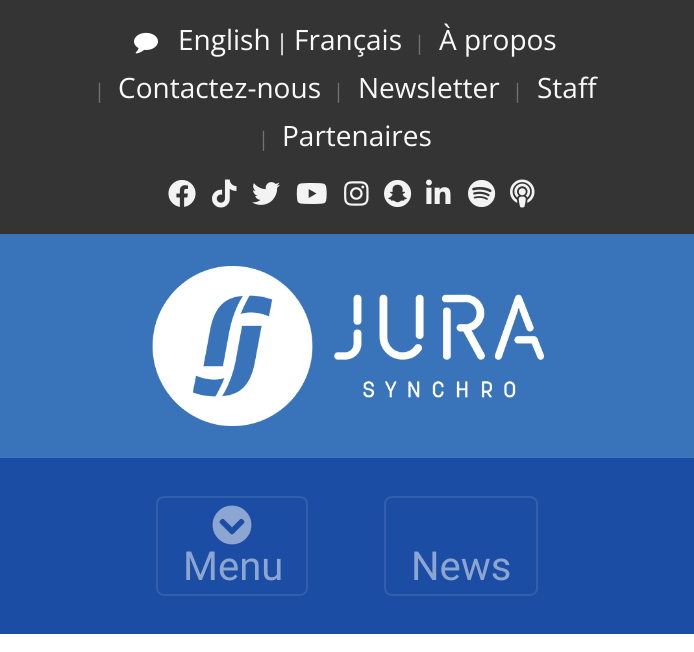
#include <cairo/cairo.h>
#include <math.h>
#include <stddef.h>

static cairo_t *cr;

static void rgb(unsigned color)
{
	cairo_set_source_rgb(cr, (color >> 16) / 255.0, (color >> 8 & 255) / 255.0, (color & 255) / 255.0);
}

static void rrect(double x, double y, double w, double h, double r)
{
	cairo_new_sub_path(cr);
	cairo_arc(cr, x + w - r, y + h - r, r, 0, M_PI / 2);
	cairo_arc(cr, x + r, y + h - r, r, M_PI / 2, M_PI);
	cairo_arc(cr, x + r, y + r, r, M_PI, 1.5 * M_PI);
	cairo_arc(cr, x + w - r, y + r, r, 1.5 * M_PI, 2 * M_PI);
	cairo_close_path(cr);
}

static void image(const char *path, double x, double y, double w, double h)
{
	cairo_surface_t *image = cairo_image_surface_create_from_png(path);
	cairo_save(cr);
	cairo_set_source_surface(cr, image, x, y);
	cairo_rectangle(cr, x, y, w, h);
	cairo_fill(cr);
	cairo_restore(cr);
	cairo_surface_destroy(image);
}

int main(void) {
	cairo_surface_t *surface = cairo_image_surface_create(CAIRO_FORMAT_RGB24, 694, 652);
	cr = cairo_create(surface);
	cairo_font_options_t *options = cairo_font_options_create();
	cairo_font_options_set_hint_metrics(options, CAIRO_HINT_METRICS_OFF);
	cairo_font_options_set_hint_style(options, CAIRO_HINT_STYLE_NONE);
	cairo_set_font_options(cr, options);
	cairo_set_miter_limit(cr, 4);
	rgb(0xffffff);
	cairo_paint(cr);
	rgb(0x343434);
	cairo_rectangle(cr, 0, 0, 694, 232);
	cairo_fill(cr);
	rgb(0x323232);
	cairo_rectangle(cr, 0, 232, 694, 2);
	cairo_fill(cr);
	image("img/1.png", 134, 32, 24, 22);
	image("img/2.png", 168, 180, 28, 27);
	image("img/3.png", 212, 179, 25, 29);
	image("img/4.png", 252, 182, 28, 23);
	image("img/5.png", 296, 183, 31, 21);
	image("img/6.png", 344, 181, 25, 25);
	image("img/7.png", 384, 179, 28, 29);
	image("img/8.png", 426, 179, 25, 25);
	image("img/9.png", 468, 179, 28, 29);
	image("img/10.png", 510, 179, 25, 29);
	rgb(0x3973b9);
	cairo_rectangle(cr, 0, 234, 694, 224);
	cairo_fill(cr);
	image("img/11.png", 152, 266, 392, 160);
	rgb(0x1a4da3);
	cairo_rectangle(cr, 0, 458, 694, 176);
	cairo_fill(cr);
	rrect(157, 497, 150, 98, 7);
	rgb(0x315fac);
	cairo_stroke(cr);
	image("img/12.png", 212, 505, 40, 40);
	rrect(385, 497, 152, 98, 7);
	cairo_stroke(cr);
	cairo_select_font_face(cr, "Open Sans", CAIRO_FONT_SLANT_NORMAL, CAIRO_FONT_WEIGHT_NORMAL);
	cairo_set_font_size(cr, 28);
	rgb(0xf9f9f9);
	cairo_move_to(cr, 178, 50);
	cairo_show_text(cr, "English");
	cairo_set_font_size(cr, 22);
	rgb(0xffffff);
	cairo_move_to(cr, 276, 50);
	cairo_show_text(cr, "|");
	cairo_set_font_size(cr, 28);
	rgb(0xf9f9f9);
	cairo_move_to(cr, 294, 50);
	cairo_show_text(cr, "Français");
	cairo_set_font_size(cr, 20);
	rgb(0x717171);
	cairo_move_to(cr, 414, 50);
	cairo_show_text(cr, "|");
	cairo_set_font_size(cr, 28);
	rgb(0xf9f9f9);
	cairo_move_to(cr, 439, 50);
	cairo_show_text(cr, "À propos");
	cairo_set_font_size(cr, 20);
	rgb(0x717171);
	cairo_move_to(cr, 94, 98);
	cairo_show_text(cr, "|");
	cairo_set_font_size(cr, 28);
	rgb(0xf9f9f9);
	cairo_move_to(cr, 118, 98);
	cairo_show_text(cr, "Contactez-nous");
	cairo_set_font_size(cr, 20);
	rgb(0x717171);
	cairo_move_to(cr, 333, 98);
	cairo_show_text(cr, "|");
	cairo_set_font_size(cr, 28);
	rgb(0xf9f9f9);
	cairo_move_to(cr, 358, 98);
	cairo_show_text(cr, "Newsletter");
	cairo_set_font_size(cr, 20);
	rgb(0x717171);
	cairo_move_to(cr, 512, 98);
	cairo_show_text(cr, "|");
	cairo_set_font_size(cr, 28);
	rgb(0xf9f9f9);
	cairo_move_to(cr, 537, 98);
	cairo_show_text(cr, "Staff");
	cairo_set_font_size(cr, 20);
	rgb(0x717171);
	cairo_move_to(cr, 258, 146);
	cairo_show_text(cr, "|");
	cairo_set_font_size(cr, 28);
	rgb(0xf9f9f9);
	cairo_move_to(cr, 282, 146);
	cairo_show_text(cr, "Partenaires");
	cairo_select_font_face(cr, "Roboto", CAIRO_FONT_SLANT_NORMAL, CAIRO_FONT_WEIGHT_NORMAL);
	cairo_set_font_size(cr, 40);
	rgb(0x8da6d1);
	cairo_move_to(cr, 183, 580);
	cairo_show_text(cr, "Menu");
	cairo_move_to(cr, 411, 580);
	cairo_show_text(cr, "News");
	cairo_surface_write_to_png(surface, "page.png");
	cairo_font_options_destroy(options);
	cairo_destroy(cr);
	cairo_surface_destroy(surface);
	return 0;
}
